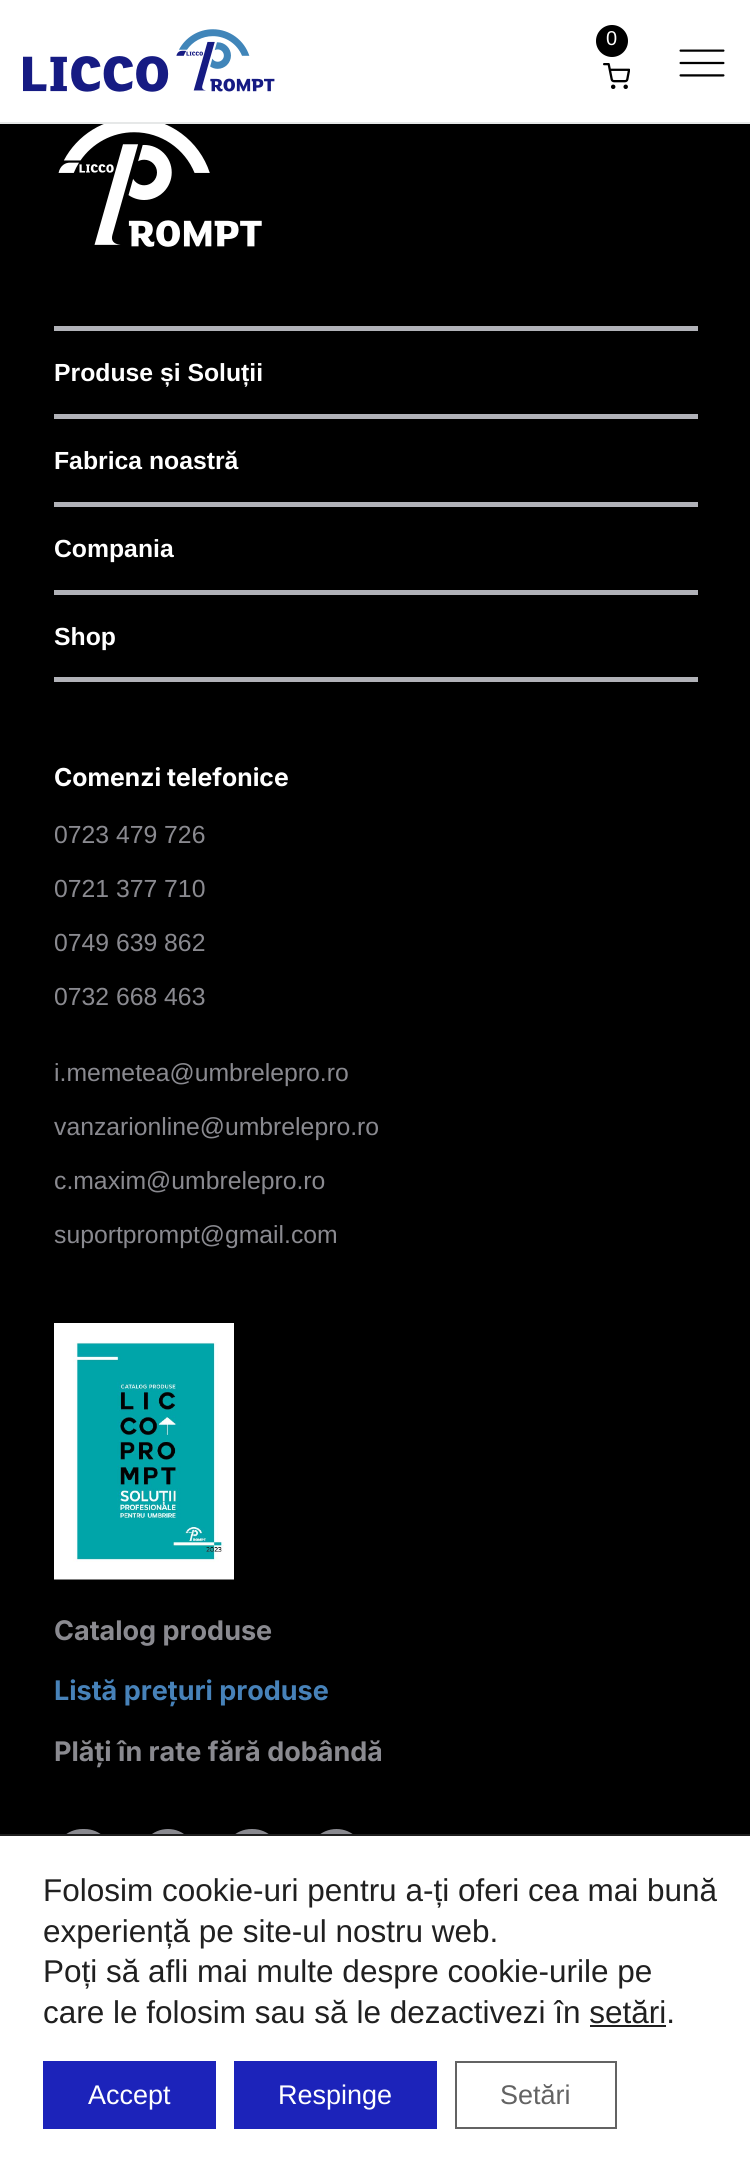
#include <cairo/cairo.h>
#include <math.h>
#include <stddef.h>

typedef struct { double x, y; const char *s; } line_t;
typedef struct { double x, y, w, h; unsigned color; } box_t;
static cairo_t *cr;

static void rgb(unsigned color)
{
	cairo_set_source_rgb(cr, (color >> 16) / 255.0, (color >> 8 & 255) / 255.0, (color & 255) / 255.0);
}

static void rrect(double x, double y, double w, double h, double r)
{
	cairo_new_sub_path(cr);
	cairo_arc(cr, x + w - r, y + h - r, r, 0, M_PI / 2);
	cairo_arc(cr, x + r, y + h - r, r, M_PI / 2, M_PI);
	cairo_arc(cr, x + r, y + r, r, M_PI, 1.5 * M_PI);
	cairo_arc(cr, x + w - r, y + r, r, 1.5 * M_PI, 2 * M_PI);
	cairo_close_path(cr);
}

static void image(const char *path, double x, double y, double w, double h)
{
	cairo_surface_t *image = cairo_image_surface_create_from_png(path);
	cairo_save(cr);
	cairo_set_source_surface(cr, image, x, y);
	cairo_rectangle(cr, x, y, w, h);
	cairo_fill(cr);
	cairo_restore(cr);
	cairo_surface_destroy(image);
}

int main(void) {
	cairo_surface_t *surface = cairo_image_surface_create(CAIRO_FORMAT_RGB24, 750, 2168);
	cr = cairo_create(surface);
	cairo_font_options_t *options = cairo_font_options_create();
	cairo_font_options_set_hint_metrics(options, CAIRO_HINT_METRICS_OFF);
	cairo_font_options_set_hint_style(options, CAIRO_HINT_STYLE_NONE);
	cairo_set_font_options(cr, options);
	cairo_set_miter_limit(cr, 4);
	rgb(0x000000);
	cairo_paint(cr);
	rgb(0xffffff);
	cairo_rectangle(cr, 0, 0, 750, 122);
	cairo_fill(cr);
	rgb(0xe6e8e8);
	cairo_rectangle(cr, 0, 122, 750, 2);
	cairo_fill(cr);
	image("img/1.png", 23, 29, 252, 63);
	rgb(0x000000);
	cairo_arc(cr, 612, 41, 17, 0, 2 * M_PI);
	cairo_fill_preserve(cr);
	rgb(0xffffff);
	cairo_stroke(cr);
	image("img/2.png", 603, 63, 27, 26);
	image("img/3.png", 679, 49, 46, 28);
	image("img/4.png", 58, 124, 204, 123);
	{
		static const box_t items[] = {
			{54, 326, 644, 5, 0xb1b2b8},
			{54, 414, 644, 5, 0xb1b2b8},
			{54, 502, 644, 5, 0xb1b2b8},
			{54, 590, 644, 5, 0xb1b2b8},
			{54, 677, 644, 5, 0xb1b2b8},
		};
		for (size_t i = 0; i < sizeof items / sizeof *items; i++) {
			rgb(items[i].color);
			cairo_rectangle(cr, items[i].x, items[i].y, items[i].w, items[i].h);
			cairo_fill(cr);
		}
	}
	image("img/5.png", 54, 1323, 180, 257);
	rrect(56.5, 1831.5, 54, 52, 26);
	rgb(0x8a8a90);
	cairo_set_line_width(cr, 5);
	cairo_stroke(cr);
	rrect(142.5, 1831.5, 51, 52, 25.5);
	cairo_stroke(cr);
	rrect(225.5, 1831.5, 53, 52, 26);
	cairo_stroke(cr);
	cairo_arc(cr, 336.5, 1857.5, 26, 0, 2 * M_PI);
	cairo_stroke(cr);
	{
		static const box_t items[] = {
			{0, 1836, 750, 332, 0xffffff},
			{0, 1834, 750, 2, 0x202020},
			{590, 2025, 76, 2, 0x202020},
			{43, 2061, 173, 68, 0x1c23ba},
			{234, 2061, 203, 68, 0x1c23ba},
		};
		for (size_t i = 0; i < sizeof items / sizeof *items; i++) {
			rgb(items[i].color);
			cairo_rectangle(cr, items[i].x, items[i].y, items[i].w, items[i].h);
			cairo_fill(cr);
		}
	}
	cairo_rectangle(cr, 456, 2062, 160, 66);
	rgb(0x636363);
	cairo_set_line_width(cr, 2);
	cairo_stroke(cr);
	cairo_select_font_face(cr, "Liberation Sans", CAIRO_FONT_SLANT_NORMAL, CAIRO_FONT_WEIGHT_NORMAL);
	cairo_set_font_size(cr, 20);
	rgb(0xffffff);
	cairo_move_to(cr, 606, 45);
	cairo_show_text(cr, "0");
	cairo_select_font_face(cr, "Liberation Sans", CAIRO_FONT_SLANT_NORMAL, CAIRO_FONT_WEIGHT_BOLD);
	cairo_set_font_size(cr, 24.75);
	{
		static const line_t items[] = {
			{54, 381, "Produse și Soluții"},
			{54, 469, "Fabrica noastră"},
			{54, 557, "Compania"},
			{54, 645, "Shop"},
		};
		for (size_t i = 0; i < sizeof items / sizeof *items; i++) {
			cairo_move_to(cr, items[i].x, items[i].y);
			cairo_show_text(cr, items[i].s);
		}
	}
	cairo_select_font_face(cr, "Inter", CAIRO_FONT_SLANT_NORMAL, CAIRO_FONT_WEIGHT_BOLD);
	cairo_move_to(cr, 54, 786);
	cairo_show_text(cr, "Comenzi telefonice");
	cairo_select_font_face(cr, "Liberation Sans", CAIRO_FONT_SLANT_NORMAL, CAIRO_FONT_WEIGHT_NORMAL);
	rgb(0x8a8a90);
	{
		static const line_t items[] = {
			{54, 843, "0723 479 726"},
			{54, 897, "0721 377 710"},
			{54, 951, "0749 639 862"},
			{54, 1005, "0732 668 463"},
			{54, 1081, "i.memetea@umbrelepro.ro"},
			{54, 1135, "vanzarionline@umbrelepro.ro"},
			{54, 1189, "c.maxim@umbrelepro.ro"},
			{54, 1243, "suportprompt@gmail.com"},
		};
		for (size_t i = 0; i < sizeof items / sizeof *items; i++) {
			cairo_move_to(cr, items[i].x, items[i].y);
			cairo_show_text(cr, items[i].s);
		}
	}
	cairo_select_font_face(cr, "Inter", CAIRO_FONT_SLANT_NORMAL, CAIRO_FONT_WEIGHT_BOLD);
	cairo_set_font_size(cr, 27);
	cairo_move_to(cr, 54, 1640);
	cairo_show_text(cr, "Catalog produse");
	rgb(0x4782b9);
	cairo_move_to(cr, 54, 1700);
	cairo_show_text(cr, "Listă prețuri produse");
	rgb(0x8a8a90);
	cairo_move_to(cr, 54, 1761);
	cairo_show_text(cr, "Plăți în rate fără dobândă");
	cairo_select_font_face(cr, "Liberation Sans", CAIRO_FONT_SLANT_NORMAL, CAIRO_FONT_WEIGHT_NORMAL);
	cairo_set_font_size(cr, 31.5);
	rgb(0x202020);
	{
		static const line_t items[] = {
			{43, 1901, "Folosim cookie-uri pentru a-ți oferi cea mai bună"},
			{43, 1942, "experiență pe site-ul nostru web."},
			{43, 1982, "Poți să afli mai multe despre cookie-urile pe"},
			{43, 2023, "care le folosim sau să le dezactivezi în setări."},
		};
		for (size_t i = 0; i < sizeof items / sizeof *items; i++) {
			cairo_move_to(cr, items[i].x, items[i].y);
			cairo_show_text(cr, items[i].s);
		}
	}
	cairo_set_font_size(cr, 27);
	rgb(0xffffff);
	cairo_move_to(cr, 88, 2104);
	cairo_show_text(cr, "Accept");
	cairo_move_to(cr, 278, 2104);
	cairo_show_text(cr, "Respinge");
	rgb(0x636363);
	cairo_move_to(cr, 500, 2104);
	cairo_show_text(cr, "Setări");
	cairo_surface_write_to_png(surface, "page.png");
	cairo_font_options_destroy(options);
	cairo_destroy(cr);
	cairo_surface_destroy(surface);
	return 0;
}
